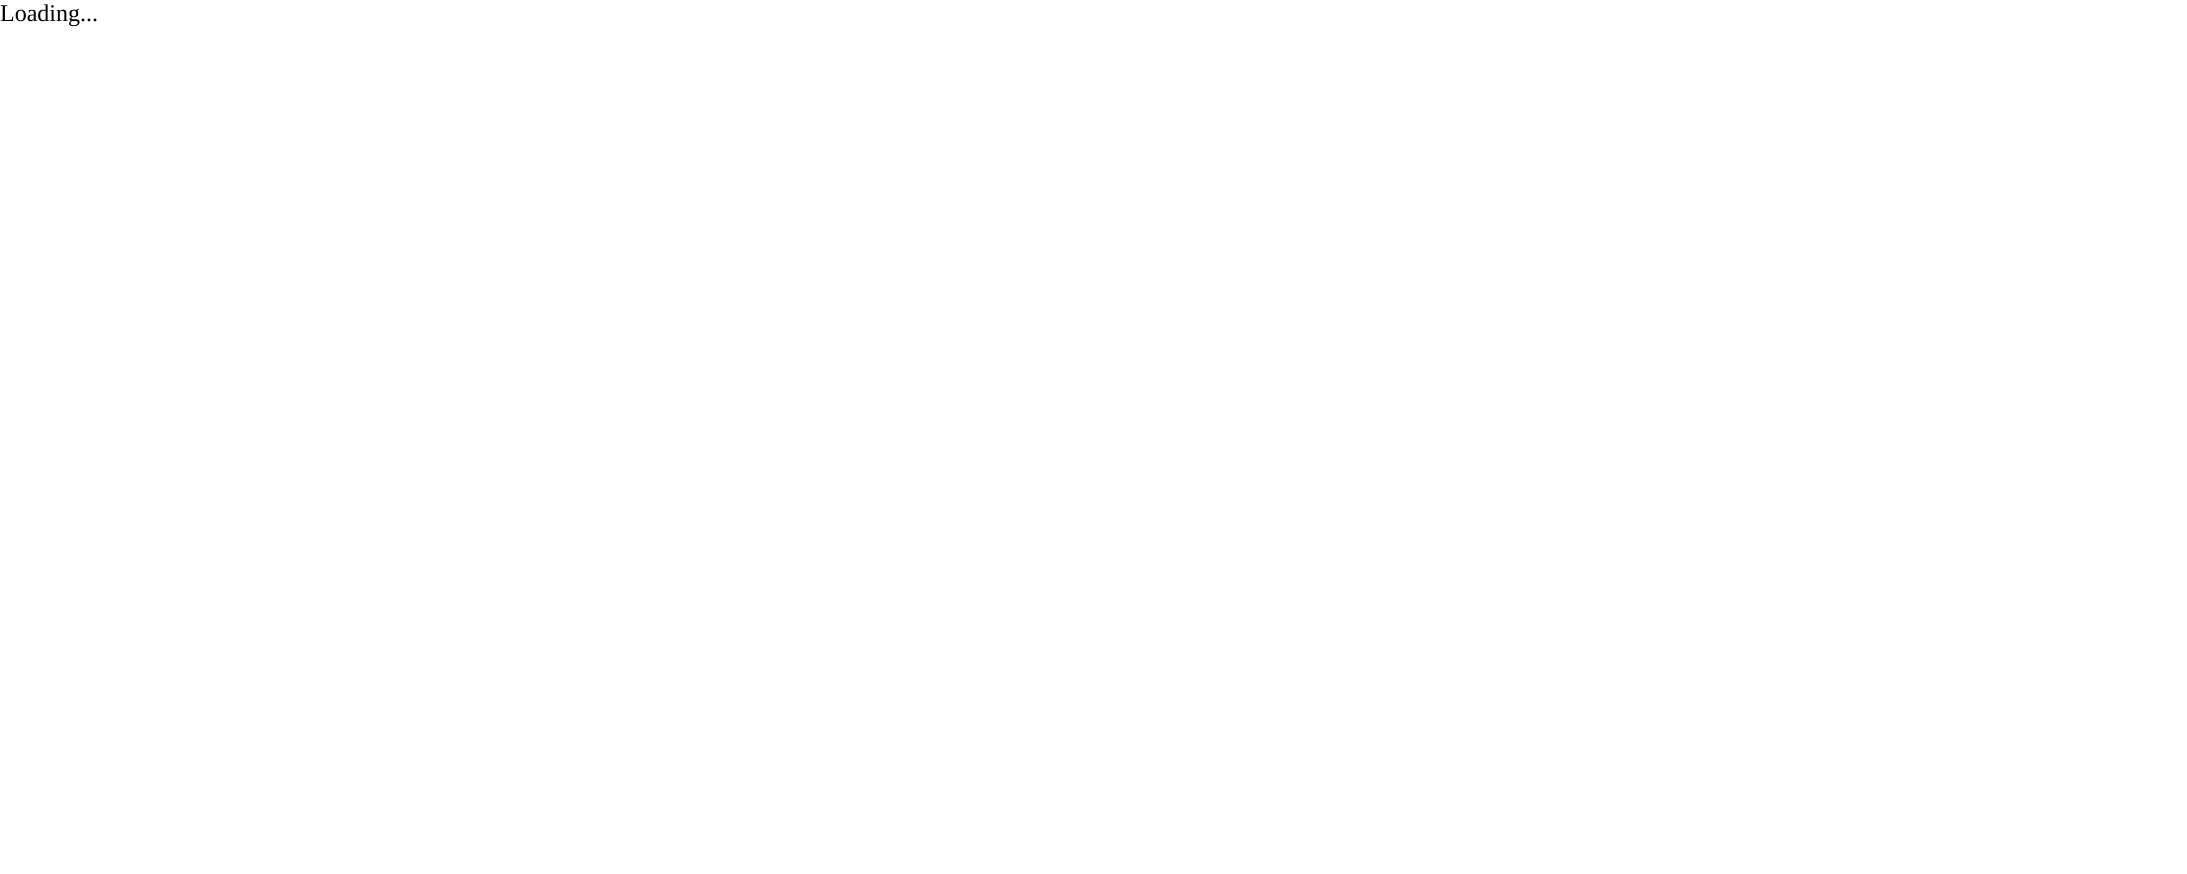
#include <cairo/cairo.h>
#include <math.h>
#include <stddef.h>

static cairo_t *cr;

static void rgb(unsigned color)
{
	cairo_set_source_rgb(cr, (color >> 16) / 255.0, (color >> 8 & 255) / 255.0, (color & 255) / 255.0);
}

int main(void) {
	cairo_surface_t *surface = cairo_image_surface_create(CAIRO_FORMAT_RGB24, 2187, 874);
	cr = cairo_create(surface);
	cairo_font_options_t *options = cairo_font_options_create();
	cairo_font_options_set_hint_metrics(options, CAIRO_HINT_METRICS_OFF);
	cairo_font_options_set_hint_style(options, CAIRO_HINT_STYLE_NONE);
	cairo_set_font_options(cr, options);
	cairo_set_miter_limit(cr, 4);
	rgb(0xffffff);
	cairo_paint(cr);
	cairo_select_font_face(cr, "Liberation Serif", CAIRO_FONT_SLANT_NORMAL, CAIRO_FONT_WEIGHT_NORMAL);
	cairo_set_font_size(cr, 24);
	rgb(0x000000);
	cairo_move_to(cr, 0, 21);
	cairo_show_text(cr, "Loading...");
	cairo_surface_write_to_png(surface, "page.png");
	cairo_font_options_destroy(options);
	cairo_destroy(cr);
	cairo_surface_destroy(surface);
	return 0;
}
